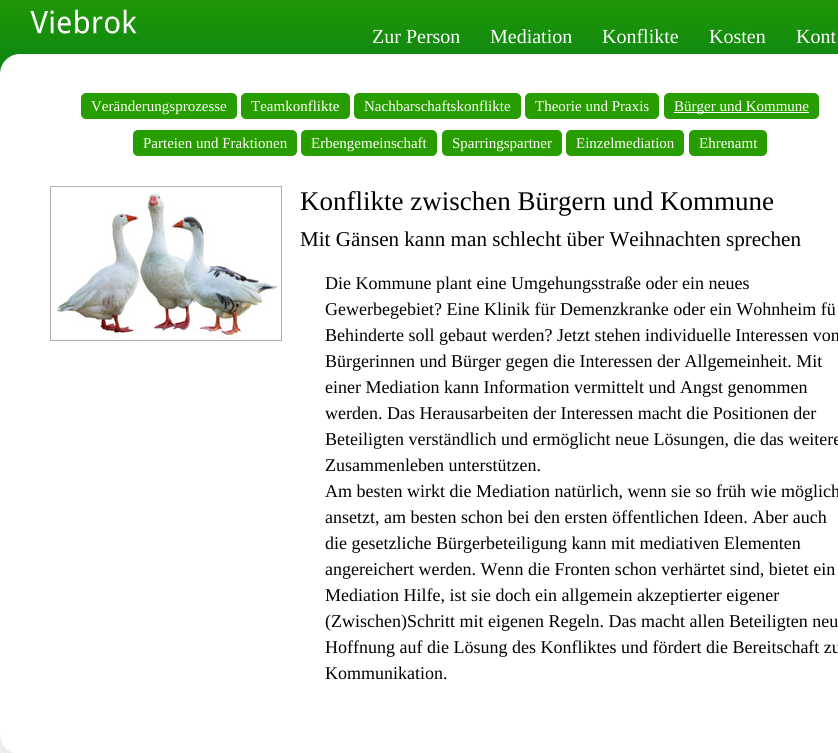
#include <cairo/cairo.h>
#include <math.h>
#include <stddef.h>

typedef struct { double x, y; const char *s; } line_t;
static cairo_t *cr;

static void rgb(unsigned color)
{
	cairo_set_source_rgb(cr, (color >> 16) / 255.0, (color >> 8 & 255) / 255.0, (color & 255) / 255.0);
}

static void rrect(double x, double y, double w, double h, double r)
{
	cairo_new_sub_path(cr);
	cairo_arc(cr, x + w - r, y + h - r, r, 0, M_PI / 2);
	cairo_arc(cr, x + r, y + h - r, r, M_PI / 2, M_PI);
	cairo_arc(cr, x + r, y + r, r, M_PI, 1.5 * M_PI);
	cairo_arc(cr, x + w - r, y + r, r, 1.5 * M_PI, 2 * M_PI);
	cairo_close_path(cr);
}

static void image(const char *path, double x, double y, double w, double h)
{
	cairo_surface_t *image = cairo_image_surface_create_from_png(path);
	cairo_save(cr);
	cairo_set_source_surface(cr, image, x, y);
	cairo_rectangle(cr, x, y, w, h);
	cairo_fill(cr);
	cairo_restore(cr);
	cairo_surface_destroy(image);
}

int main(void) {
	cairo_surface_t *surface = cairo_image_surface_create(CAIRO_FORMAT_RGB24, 838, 753);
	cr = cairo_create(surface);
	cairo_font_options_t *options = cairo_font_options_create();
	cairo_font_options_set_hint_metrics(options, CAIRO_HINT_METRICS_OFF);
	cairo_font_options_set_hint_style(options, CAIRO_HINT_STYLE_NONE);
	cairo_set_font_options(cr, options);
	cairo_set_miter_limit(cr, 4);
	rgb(0xffffff);
	cairo_paint(cr);
	image("img/1.png", 0, 734, 14, 19);
	image("img/2.png", 0, 0, 838, 74);
	image("img/3.png", 30, 9, 107, 25);
	rgb(0xffffff);
	rrect(0, 54, 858, 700, 20);
	cairo_fill(cr);
	rgb(0x289d00);
	rrect(81, 93, 156, 26, 5);
	cairo_fill(cr);
	rrect(241, 93, 109, 26, 5);
	cairo_fill(cr);
	rrect(354, 93, 167, 26, 5);
	cairo_fill(cr);
	rrect(525, 93, 134, 26, 5);
	cairo_fill(cr);
	rrect(664, 93, 155, 26, 5);
	cairo_fill(cr);
	rgb(0xffffff);
	cairo_rectangle(cr, 674, 112, 135, 1);
	cairo_fill(cr);
	rgb(0x289d00);
	rrect(133, 130, 164, 26, 5);
	cairo_fill(cr);
	rrect(301, 130, 136, 26, 5);
	cairo_fill(cr);
	rrect(442, 130, 120, 26, 5);
	cairo_fill(cr);
	rrect(566, 130, 118, 26, 5);
	cairo_fill(cr);
	rrect(689, 130, 78, 26, 5);
	cairo_fill(cr);
	cairo_rectangle(cr, 50.5, 186.5, 231, 154);
	rgb(0xafafaf);
	cairo_set_line_width(cr, 1);
	cairo_stroke(cr);
	image("img/4.png", 56, 193, 222, 146);
	cairo_select_font_face(cr, "Liberation Serif", CAIRO_FONT_SLANT_NORMAL, CAIRO_FONT_WEIGHT_NORMAL);
	cairo_set_font_size(cr, 20);
	rgb(0xffffff);
	{
		static const line_t items[] = {
			{372, 43, "Zur Person"},
			{490, 43, "Mediation"},
			{602, 43, "Konflikte"},
			{709, 43, "Kosten"},
			{796, 43, "Kont"},
		};
		for (size_t i = 0; i < sizeof items / sizeof *items; i++) {
			cairo_move_to(cr, items[i].x, items[i].y);
			cairo_show_text(cr, items[i].s);
		}
	}
	cairo_set_font_size(cr, 15);
	{
		static const line_t items[] = {
			{91, 111, "Veränderungsprozesse"},
			{251, 111, "Teamkonflikte"},
			{364, 111, "Nachbarschaftskonflikte"},
			{535, 111, "Theorie und Praxis"},
			{674, 111, "Bürger und Kommune"},
			{143, 148, "Parteien und Fraktionen"},
			{311, 148, "Erbengemeinschaft"},
			{452, 148, "Sparringspartner"},
			{576, 148, "Einzelmediation"},
			{699, 148, "Ehrenamt"},
		};
		for (size_t i = 0; i < sizeof items / sizeof *items; i++) {
			cairo_move_to(cr, items[i].x, items[i].y);
			cairo_show_text(cr, items[i].s);
		}
	}
	cairo_set_font_size(cr, 27);
	rgb(0x000000);
	cairo_move_to(cr, 300, 210);
	cairo_show_text(cr, "Konflikte zwischen Bürgern und Kommune");
	cairo_set_font_size(cr, 21.1);
	cairo_move_to(cr, 300, 246);
	cairo_show_text(cr, "Mit Gänsen kann man schlecht über Weihnachten sprechen");
	cairo_set_font_size(cr, 18);
	{
		static const line_t items[] = {
			{325, 289, "Die Kommune plant eine Umgehungsstraße oder ein neues"},
			{325, 315, "Gewerbegebiet? Eine Klinik für Demenzkranke oder ein Wohnheim fü"},
			{325, 341, "Behinderte soll gebaut werden? Jetzt stehen individuelle Interessen von"},
			{325, 367, "Bürgerinnen und Bürger gegen die Interessen der Allgemeinheit. Mit"},
			{325, 393, "einer Mediation kann Information vermittelt und Angst genommen"},
			{325, 419, "werden. Das Herausarbeiten der Interessen macht die Positionen der"},
			{325, 445, "Beteiligten verständlich und ermöglicht neue Lösungen, die das weitere"},
			{325, 471, "Zusammenleben unterstützen."},
			{325, 497, "Am besten wirkt die Mediation natürlich, wenn sie so früh wie möglich"},
			{325, 523, "ansetzt, am besten schon bei den ersten öffentlichen Ideen. Aber auch"},
			{325, 549, "die gesetzliche Bürgerbeteiligung kann mit mediativen Elementen"},
			{325, 575, "angereichert werden. Wenn die Fronten schon verhärtet sind, bietet ein"},
			{325, 601, "Mediation Hilfe, ist sie doch ein allgemein akzeptierter eigener"},
			{325, 627, "(Zwischen)Schritt mit eigenen Regeln. Das macht allen Beteiligten neu"},
			{325, 653, "Hoffnung auf die Lösung des Konfliktes und fördert die Bereitschaft zu"},
			{325, 679, "Kommunikation."},
		};
		for (size_t i = 0; i < sizeof items / sizeof *items; i++) {
			cairo_move_to(cr, items[i].x, items[i].y);
			cairo_show_text(cr, items[i].s);
		}
	}
	cairo_surface_write_to_png(surface, "page.png");
	cairo_font_options_destroy(options);
	cairo_destroy(cr);
	cairo_surface_destroy(surface);
	return 0;
}
